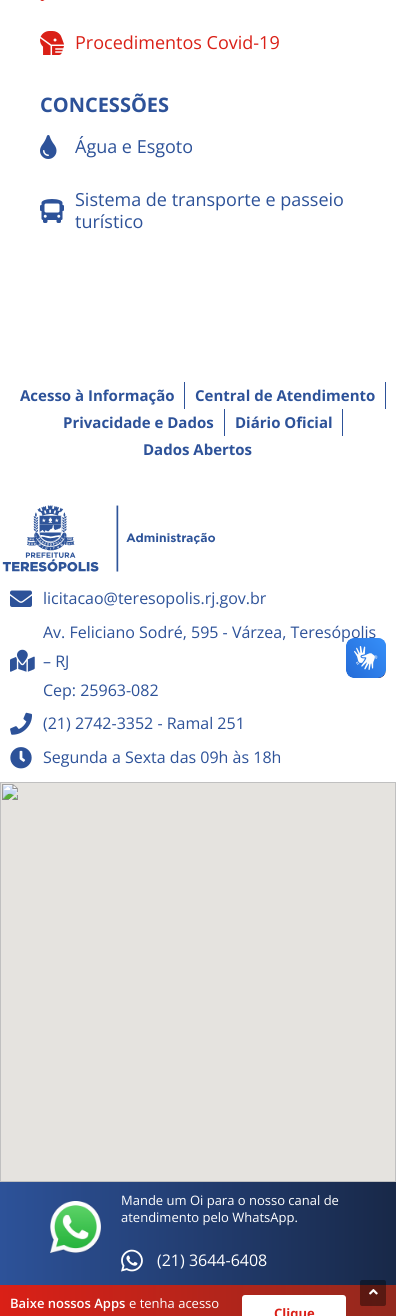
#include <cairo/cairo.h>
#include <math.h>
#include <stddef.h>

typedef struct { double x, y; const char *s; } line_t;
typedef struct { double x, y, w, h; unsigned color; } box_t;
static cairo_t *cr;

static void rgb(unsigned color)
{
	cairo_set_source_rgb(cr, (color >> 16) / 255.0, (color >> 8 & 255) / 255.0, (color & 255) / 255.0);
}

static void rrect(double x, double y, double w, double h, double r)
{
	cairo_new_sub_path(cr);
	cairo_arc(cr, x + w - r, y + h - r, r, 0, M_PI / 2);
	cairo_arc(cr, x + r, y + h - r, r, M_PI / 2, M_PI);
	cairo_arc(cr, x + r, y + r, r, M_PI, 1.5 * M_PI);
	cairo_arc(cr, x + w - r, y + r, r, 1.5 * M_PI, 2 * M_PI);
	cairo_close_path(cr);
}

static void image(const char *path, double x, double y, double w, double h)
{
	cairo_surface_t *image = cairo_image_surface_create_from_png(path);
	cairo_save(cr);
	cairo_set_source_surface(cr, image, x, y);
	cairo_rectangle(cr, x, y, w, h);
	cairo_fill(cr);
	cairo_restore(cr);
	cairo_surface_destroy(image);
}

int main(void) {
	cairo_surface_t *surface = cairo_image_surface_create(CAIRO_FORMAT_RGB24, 396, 1316);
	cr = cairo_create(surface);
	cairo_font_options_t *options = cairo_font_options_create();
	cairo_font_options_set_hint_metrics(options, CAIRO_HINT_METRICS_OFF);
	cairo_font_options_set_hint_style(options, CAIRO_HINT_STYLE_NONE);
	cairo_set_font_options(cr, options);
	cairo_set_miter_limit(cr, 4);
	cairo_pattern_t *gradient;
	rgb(0xffffff);
	cairo_paint(cr);
	image("img/1.png", 40, 0, 5, 1);
	image("img/2.png", 40, 31, 24, 24);
	image("img/3.png", 40, 135, 17, 24);
	image("img/4.png", 40, 199, 24, 24);
	{
		static const box_t items[] = {
			{184, 382, 1, 27, 0x2d5299},
			{385, 382, 1, 27, 0x2d5299},
			{224, 409, 1, 27, 0x2d5299},
			{342, 409, 1, 27, 0x2d5299},
		};
		for (size_t i = 0; i < sizeof items / sizeof *items; i++) {
			rgb(items[i].color);
			cairo_rectangle(cr, items[i].x, items[i].y, items[i].w, items[i].h);
			cairo_fill(cr);
		}
	}
	image("img/5.png", 2, 505, 214, 67);
	image("img/6.png", 10, 590, 22, 17);
	image("img/7.png", 10, 649, 25, 23);
	image("img/8.png", 10, 712, 22, 23);
	image("img/9.png", 10, 747, 22, 22);
	image("img/10.png", 0, 782, 396, 400);
	gradient = cairo_pattern_create_linear(0, 1234, 396, 1234);
	cairo_pattern_add_color_stop_rgba(gradient, 0, 0.176, 0.322, 0.6, 1);
	cairo_pattern_add_color_stop_rgba(gradient, 1, 0.094, 0.157, 0.282, 1);
	cairo_set_source(cr, gradient);
	cairo_pattern_destroy(gradient);
	cairo_rectangle(cr, 0, 1182, 396, 103);
	cairo_fill(cr);
	image("img/13.png", 50, 1201, 51, 52);
	image("img/14.png", 121, 1249, 22, 23);
	gradient = cairo_pattern_create_linear(0, 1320, 396, 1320);
	cairo_pattern_add_color_stop_rgba(gradient, 0, 0.855, 0.125, 0.09, 1);
	cairo_pattern_add_color_stop_rgba(gradient, 1, 0.576, 0.161, 0.118, 1);
	cairo_set_source(cr, gradient);
	cairo_pattern_destroy(gradient);
	cairo_rectangle(cr, 0, 1285, 396, 31);
	cairo_fill(cr);
	rgb(0xffffff);
	rrect(242, 1295, 104, 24, 3);
	cairo_fill(cr);
	cairo_set_source_rgba(cr, 0, 0, 0, 0.4);
	rrect(360, 1280, 26, 26, 2);
	cairo_fill(cr);
	image("img/15.png", 369, 1289, 9, 6);
	cairo_select_font_face(cr, "Open Sans", CAIRO_FONT_SLANT_NORMAL, CAIRO_FONT_WEIGHT_NORMAL);
	cairo_set_font_size(cr, 18);
	rgb(0xda2017);
	cairo_move_to(cr, 75, 49);
	cairo_show_text(cr, "Procedimentos Covid-19");
	cairo_select_font_face(cr, "Open Sans", CAIRO_FONT_SLANT_NORMAL, CAIRO_FONT_WEIGHT_BOLD);
	cairo_set_font_size(cr, 20);
	rgb(0x2d5299);
	cairo_move_to(cr, 40, 112);
	cairo_show_text(cr, "CONCESSÕES");
	cairo_select_font_face(cr, "Open Sans", CAIRO_FONT_SLANT_NORMAL, CAIRO_FONT_WEIGHT_NORMAL);
	cairo_set_font_size(cr, 18);
	{
		static const line_t items[] = {
			{75, 153, "Água e Esgoto"},
			{75, 206, "Sistema de transporte e passeio"},
			{75, 228, "turístico"},
		};
		for (size_t i = 0; i < sizeof items / sizeof *items; i++) {
			cairo_move_to(cr, items[i].x, items[i].y);
			cairo_show_text(cr, items[i].s);
		}
	}
	cairo_select_font_face(cr, "Open Sans", CAIRO_FONT_SLANT_NORMAL, CAIRO_FONT_WEIGHT_BOLD);
	cairo_set_font_size(cr, 15);
	{
		static const line_t items[] = {
			{20, 401, "Acesso à Informação"},
			{195, 401, "Central de Atendimento"},
			{63, 428, "Privacidade e Dados"},
			{235, 428, "Diário Oficial"},
			{143, 455, "Dados Abertos"},
		};
		for (size_t i = 0; i < sizeof items / sizeof *items; i++) {
			cairo_move_to(cr, items[i].x, items[i].y);
			cairo_show_text(cr, items[i].s);
		}
	}
	cairo_select_font_face(cr, "Open Sans", CAIRO_FONT_SLANT_NORMAL, CAIRO_FONT_WEIGHT_NORMAL);
	cairo_set_font_size(cr, 16);
	{
		static const line_t items[] = {
			{43, 604, "licitacao@teresopolis.rj.gov.br"},
			{43, 638, "Av. Feliciano Sodré, 595 - Várzea, Teresópolis"},
			{43, 667, "– RJ"},
			{43, 696, "Cep: 25963-082"},
			{43, 729, "(21) 2742-3352 - Ramal 251"},
			{43, 763, "Segunda a Sexta das 09h às 18h"},
		};
		for (size_t i = 0; i < sizeof items / sizeof *items; i++) {
			cairo_move_to(cr, items[i].x, items[i].y);
			cairo_show_text(cr, items[i].s);
		}
	}
	image("img/11.png", 346, 638, 40, 40);
	image("img/12.png", 346, 638, 40, 40);
	cairo_set_font_size(cr, 13);
	rgb(0xffffff);
	cairo_move_to(cr, 121, 1205);
	cairo_show_text(cr, "Mande um Oi para o nosso canal de");
	cairo_move_to(cr, 121, 1222);
	cairo_show_text(cr, "atendimento pelo WhatsApp.");
	cairo_set_font_size(cr, 16);
	cairo_move_to(cr, 157, 1266);
	cairo_show_text(cr, "(21) 3644-6408");
	cairo_select_font_face(cr, "Open Sans SemiBold", CAIRO_FONT_SLANT_NORMAL, CAIRO_FONT_WEIGHT_NORMAL);
	cairo_set_font_size(cr, 13);
	cairo_move_to(cr, 10, 1308);
	cairo_show_text(cr, "Baixe nossos Apps");
	cairo_select_font_face(cr, "Open Sans", CAIRO_FONT_SLANT_NORMAL, CAIRO_FONT_WEIGHT_NORMAL);
	cairo_move_to(cr, 129, 1308);
	cairo_show_text(cr, "e tenha acesso");
	cairo_select_font_face(cr, "Open Sans", CAIRO_FONT_SLANT_NORMAL, CAIRO_FONT_WEIGHT_BOLD);
	rgb(0xda2017);
	cairo_move_to(cr, 274, 1318);
	cairo_show_text(cr, "Clique");
	cairo_surface_write_to_png(surface, "page.png");
	cairo_font_options_destroy(options);
	cairo_destroy(cr);
	cairo_surface_destroy(surface);
	return 0;
}
